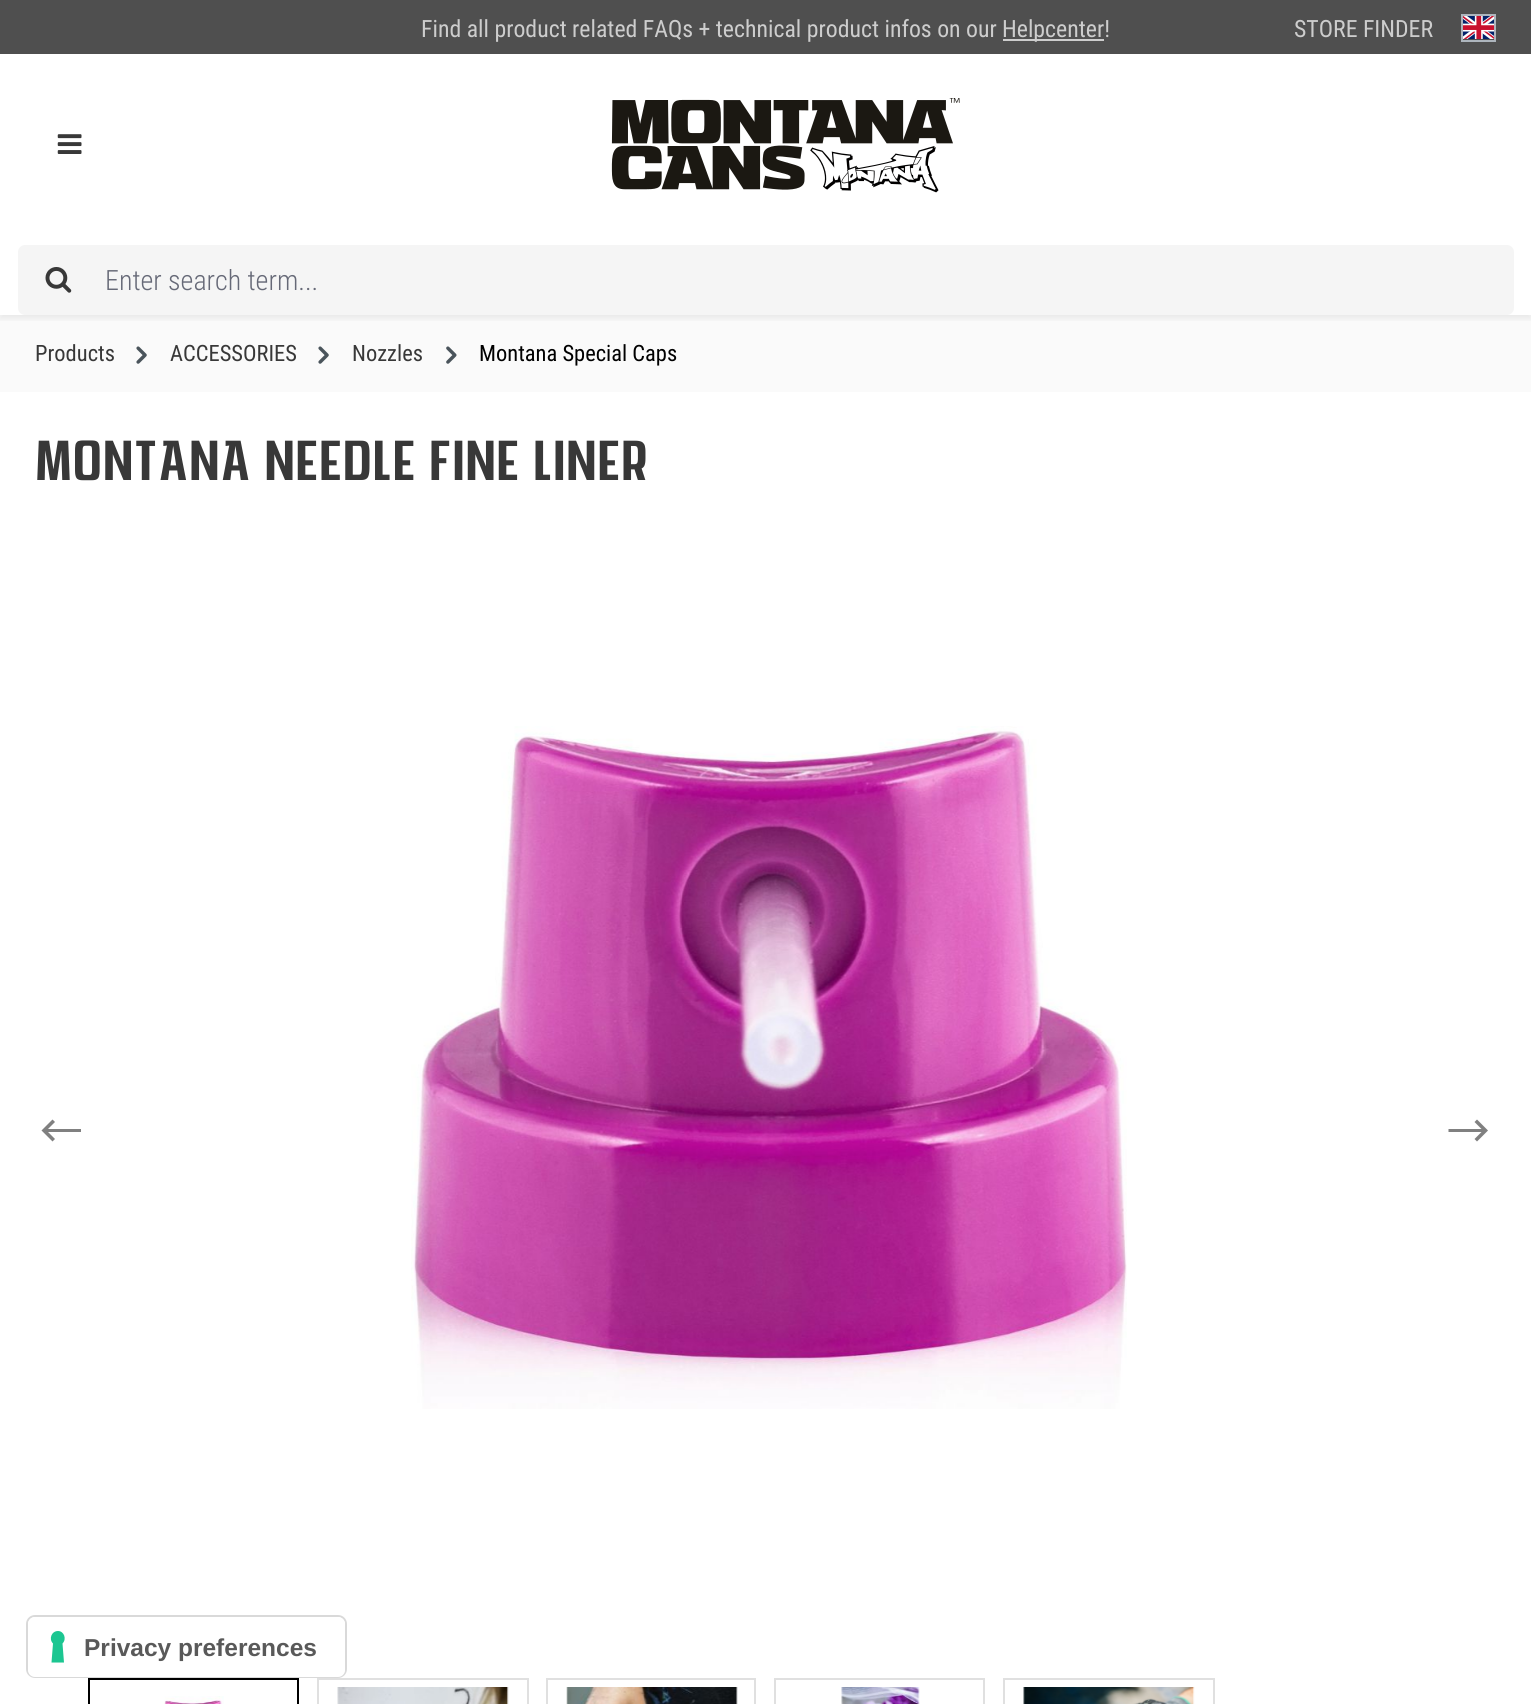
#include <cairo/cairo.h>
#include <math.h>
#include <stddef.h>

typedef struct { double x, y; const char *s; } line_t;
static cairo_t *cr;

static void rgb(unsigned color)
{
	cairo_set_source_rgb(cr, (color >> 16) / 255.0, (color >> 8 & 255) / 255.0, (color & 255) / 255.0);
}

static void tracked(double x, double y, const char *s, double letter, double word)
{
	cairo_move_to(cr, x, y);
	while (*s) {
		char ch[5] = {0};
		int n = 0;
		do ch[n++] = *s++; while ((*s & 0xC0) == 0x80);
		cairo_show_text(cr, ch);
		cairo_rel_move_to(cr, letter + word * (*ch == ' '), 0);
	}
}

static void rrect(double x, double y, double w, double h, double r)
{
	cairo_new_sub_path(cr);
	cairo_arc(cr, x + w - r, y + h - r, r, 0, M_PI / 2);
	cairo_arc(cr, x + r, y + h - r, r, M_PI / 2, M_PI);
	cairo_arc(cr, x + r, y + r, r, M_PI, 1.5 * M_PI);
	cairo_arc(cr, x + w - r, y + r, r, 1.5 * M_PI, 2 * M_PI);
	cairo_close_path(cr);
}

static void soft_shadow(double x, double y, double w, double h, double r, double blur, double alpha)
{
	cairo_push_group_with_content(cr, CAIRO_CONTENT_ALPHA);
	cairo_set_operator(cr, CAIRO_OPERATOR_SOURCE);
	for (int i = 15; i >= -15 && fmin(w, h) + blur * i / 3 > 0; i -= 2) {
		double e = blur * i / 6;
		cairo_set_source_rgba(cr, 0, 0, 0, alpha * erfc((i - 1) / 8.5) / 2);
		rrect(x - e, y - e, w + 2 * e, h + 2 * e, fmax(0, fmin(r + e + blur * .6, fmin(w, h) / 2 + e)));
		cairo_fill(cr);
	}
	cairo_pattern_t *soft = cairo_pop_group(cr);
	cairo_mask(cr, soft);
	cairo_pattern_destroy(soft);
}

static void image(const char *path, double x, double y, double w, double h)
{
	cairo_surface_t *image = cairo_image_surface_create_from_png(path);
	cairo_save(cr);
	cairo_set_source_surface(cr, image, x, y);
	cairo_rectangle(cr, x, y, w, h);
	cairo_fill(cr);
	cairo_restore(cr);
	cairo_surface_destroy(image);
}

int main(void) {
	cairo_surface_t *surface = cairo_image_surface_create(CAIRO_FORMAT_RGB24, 1531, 1704);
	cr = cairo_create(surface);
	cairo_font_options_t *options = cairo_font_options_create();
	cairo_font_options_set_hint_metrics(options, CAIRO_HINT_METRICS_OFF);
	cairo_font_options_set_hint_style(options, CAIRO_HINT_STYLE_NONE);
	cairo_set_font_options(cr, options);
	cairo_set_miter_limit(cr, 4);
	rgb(0xffffff);
	cairo_paint(cr);
	cairo_select_font_face(cr, "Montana", CAIRO_FONT_SLANT_NORMAL, CAIRO_FONT_WEIGHT_NORMAL);
	cairo_set_font_size(cr, 61);
	rgb(0x383838);
	tracked(35, 480, "Montana Needle Fine Liner", 0.9, 0);
	cairo_save(cr);
	cairo_rectangle(cr, 0, 315, 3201, 77);
	cairo_clip(cr);
	cairo_rectangle(cr, -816.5, -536.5, 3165, 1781);
	rgb(0xfafafa);
	cairo_set_line_width(cr, 1705);
	cairo_stroke(cr);
	cairo_restore(cr);
	rgb(0xfafafa);
	cairo_rectangle(cr, 36, 316, 1460, 76);
	cairo_fill(cr);
	cairo_save(cr);
	cairo_rectangle(cr, 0, 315, 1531, 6);
	cairo_clip(cr);
	rgb(0x000000);
	soft_shadow(0, 4, 1531, 315, 0, 3.5, 0.07);
	cairo_restore(cr);
	rgb(0x4f4f4f);
	cairo_rectangle(cr, 0, 0, 1531, 54);
	cairo_fill(cr);
	image("img/1.png", 1463, 16, 31, 23);
	cairo_rectangle(cr, 1462, 15, 33, 26);
	rgb(0xadb5bd);
	cairo_stroke(cr);
	cairo_select_font_face(cr, "Roboto Condensed", CAIRO_FONT_SLANT_NORMAL, CAIRO_FONT_WEIGHT_NORMAL);
	cairo_set_font_size(cr, 23.8);
	rgb(0xcdcdcd);
	cairo_move_to(cr, 1294, 37);
	cairo_show_text(cr, "STORE FINDER");
	cairo_rectangle(cr, 1003, 39, 101, 2);
	cairo_fill(cr);
	cairo_move_to(cr, 1002, 37);
	cairo_show_text(cr, "Helpcenter!");
	cairo_move_to(cr, 421, 37);
	cairo_show_text(cr, "Find all product related FAQs + technical product infos on our");
	rgb(0xf5f5f5);
	rrect(18, 245, 1496, 70, 7);
	cairo_fill(cr);
	image("img/4.png", 45, 267, 27, 26);
	cairo_select_font_face(cr, "Roboto Condensed Light", CAIRO_FONT_SLANT_NORMAL, CAIRO_FONT_WEIGHT_NORMAL);
	cairo_set_font_size(cr, 28);
	rgb(0x666977);
	cairo_move_to(cr, 105, 290);
	cairo_show_text(cr, "Enter search term...");
	image("img/2.png", 57, 134, 25, 20);
	image("img/3.png", 611, 98, 349, 95);
	image("img/6.png", 446, 346, 11, 18);
	image("img/5.png", 318, 346, 11, 18);
	image("img/5.png", 136, 346, 11, 18);
	cairo_select_font_face(cr, "Roboto Condensed", CAIRO_FONT_SLANT_NORMAL, CAIRO_FONT_WEIGHT_NORMAL);
	cairo_set_font_size(cr, 22.5);
	rgb(0x000000);
	cairo_move_to(cr, 479, 361);
	cairo_show_text(cr, "Montana Special Caps");
	rgb(0x383838);
	{
		static const line_t items[] = {
			{352, 361, "Nozzles"},
			{170, 361, "ACCESSORIES"},
			{35, 361, "Products"},
		};
		for (size_t i = 0; i < sizeof items / sizeof *items; i++) {
			cairo_move_to(cr, items[i].x, items[i].y);
			cairo_show_text(cr, items[i].s);
		}
	}
	image("img/7.png", 411, 726, 716, 683);
	rgb(0x808080);
	cairo_new_path(cr);
	cairo_move_to(cr, 52.5, 1119.5);
	cairo_line_to(cr, 41.5, 1130.5);
	cairo_line_to(cr, 52.5, 1141.5);
	cairo_line_to(cr, 55, 1139);
	cairo_line_to(cr, 48, 1132);
	cairo_line_to(cr, 81, 1132);
	cairo_line_to(cr, 81, 1129);
	cairo_line_to(cr, 48, 1129);
	cairo_line_to(cr, 55, 1122);
	cairo_close_path(cr);
	cairo_fill(cr);
	cairo_new_path(cr);
	cairo_move_to(cr, 1477, 1119.5);
	cairo_line_to(cr, 1474.5, 1122);
	cairo_line_to(cr, 1481.5, 1129);
	cairo_line_to(cr, 1448.5, 1129);
	cairo_line_to(cr, 1448.5, 1132);
	cairo_line_to(cr, 1481.5, 1132);
	cairo_line_to(cr, 1474.5, 1139);
	cairo_line_to(cr, 1477, 1141.5);
	cairo_line_to(cr, 1488, 1130.5);
	cairo_close_path(cr);
	cairo_fill(cr);
	cairo_rectangle(cr, 89, 1679, 209, 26);
	rgb(0x000000);
	cairo_stroke(cr);
	image("img/8.png", 164, 1696, 60, 8);
	cairo_rectangle(cr, 318, 1679, 210, 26);
	rgb(0xe0e0e0);
	cairo_stroke(cr);
	image("img/9.png", 337, 1687, 172, 17);
	cairo_rectangle(cr, 547, 1679, 208, 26);
	cairo_stroke(cr);
	image("img/10.png", 566, 1687, 172, 17);
	cairo_rectangle(cr, 775, 1679, 209, 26);
	cairo_stroke(cr);
	image("img/11.png", 841, 1687, 79, 17);
	cairo_rectangle(cr, 1004, 1679, 210, 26);
	cairo_stroke(cr);
	image("img/12.png", 1023, 1687, 172, 17);
	rrect(27, 1616, 319, 61, 8);
	rgb(0xd9d9d9);
	cairo_stroke(cr);
	rgb(0xffffff);
	rrect(28, 1617, 317, 60, 7);
	cairo_fill(cr);
	rgb(0x1cc691);
	cairo_set_fill_rule(cr, CAIRO_FILL_RULE_EVEN_ODD);
	cairo_new_path(cr);
	cairo_move_to(cr, 58, 1631);
	cairo_curve_to(cr, 64, 1631, 67, 1639, 62.5, 1643.5);
	cairo_line_to(cr, 64, 1662.5);
	cairo_line_to(cr, 51.5, 1662.5);
	cairo_line_to(cr, 53, 1643.5);
	cairo_curve_to(cr, 48.5, 1639, 51.5, 1631, 58, 1631);
	cairo_close_path(cr);
	cairo_fill(cr);
	cairo_select_font_face(cr, "Liberation Sans", CAIRO_FONT_SLANT_NORMAL, CAIRO_FONT_WEIGHT_BOLD);
	cairo_set_font_size(cr, 24.5);
	rgb(0x595959);
	cairo_move_to(cr, 84, 1656);
	cairo_show_text(cr, "Privacy preferences");
	cairo_surface_write_to_png(surface, "page.png");
	cairo_font_options_destroy(options);
	cairo_destroy(cr);
	cairo_surface_destroy(surface);
	return 0;
}
